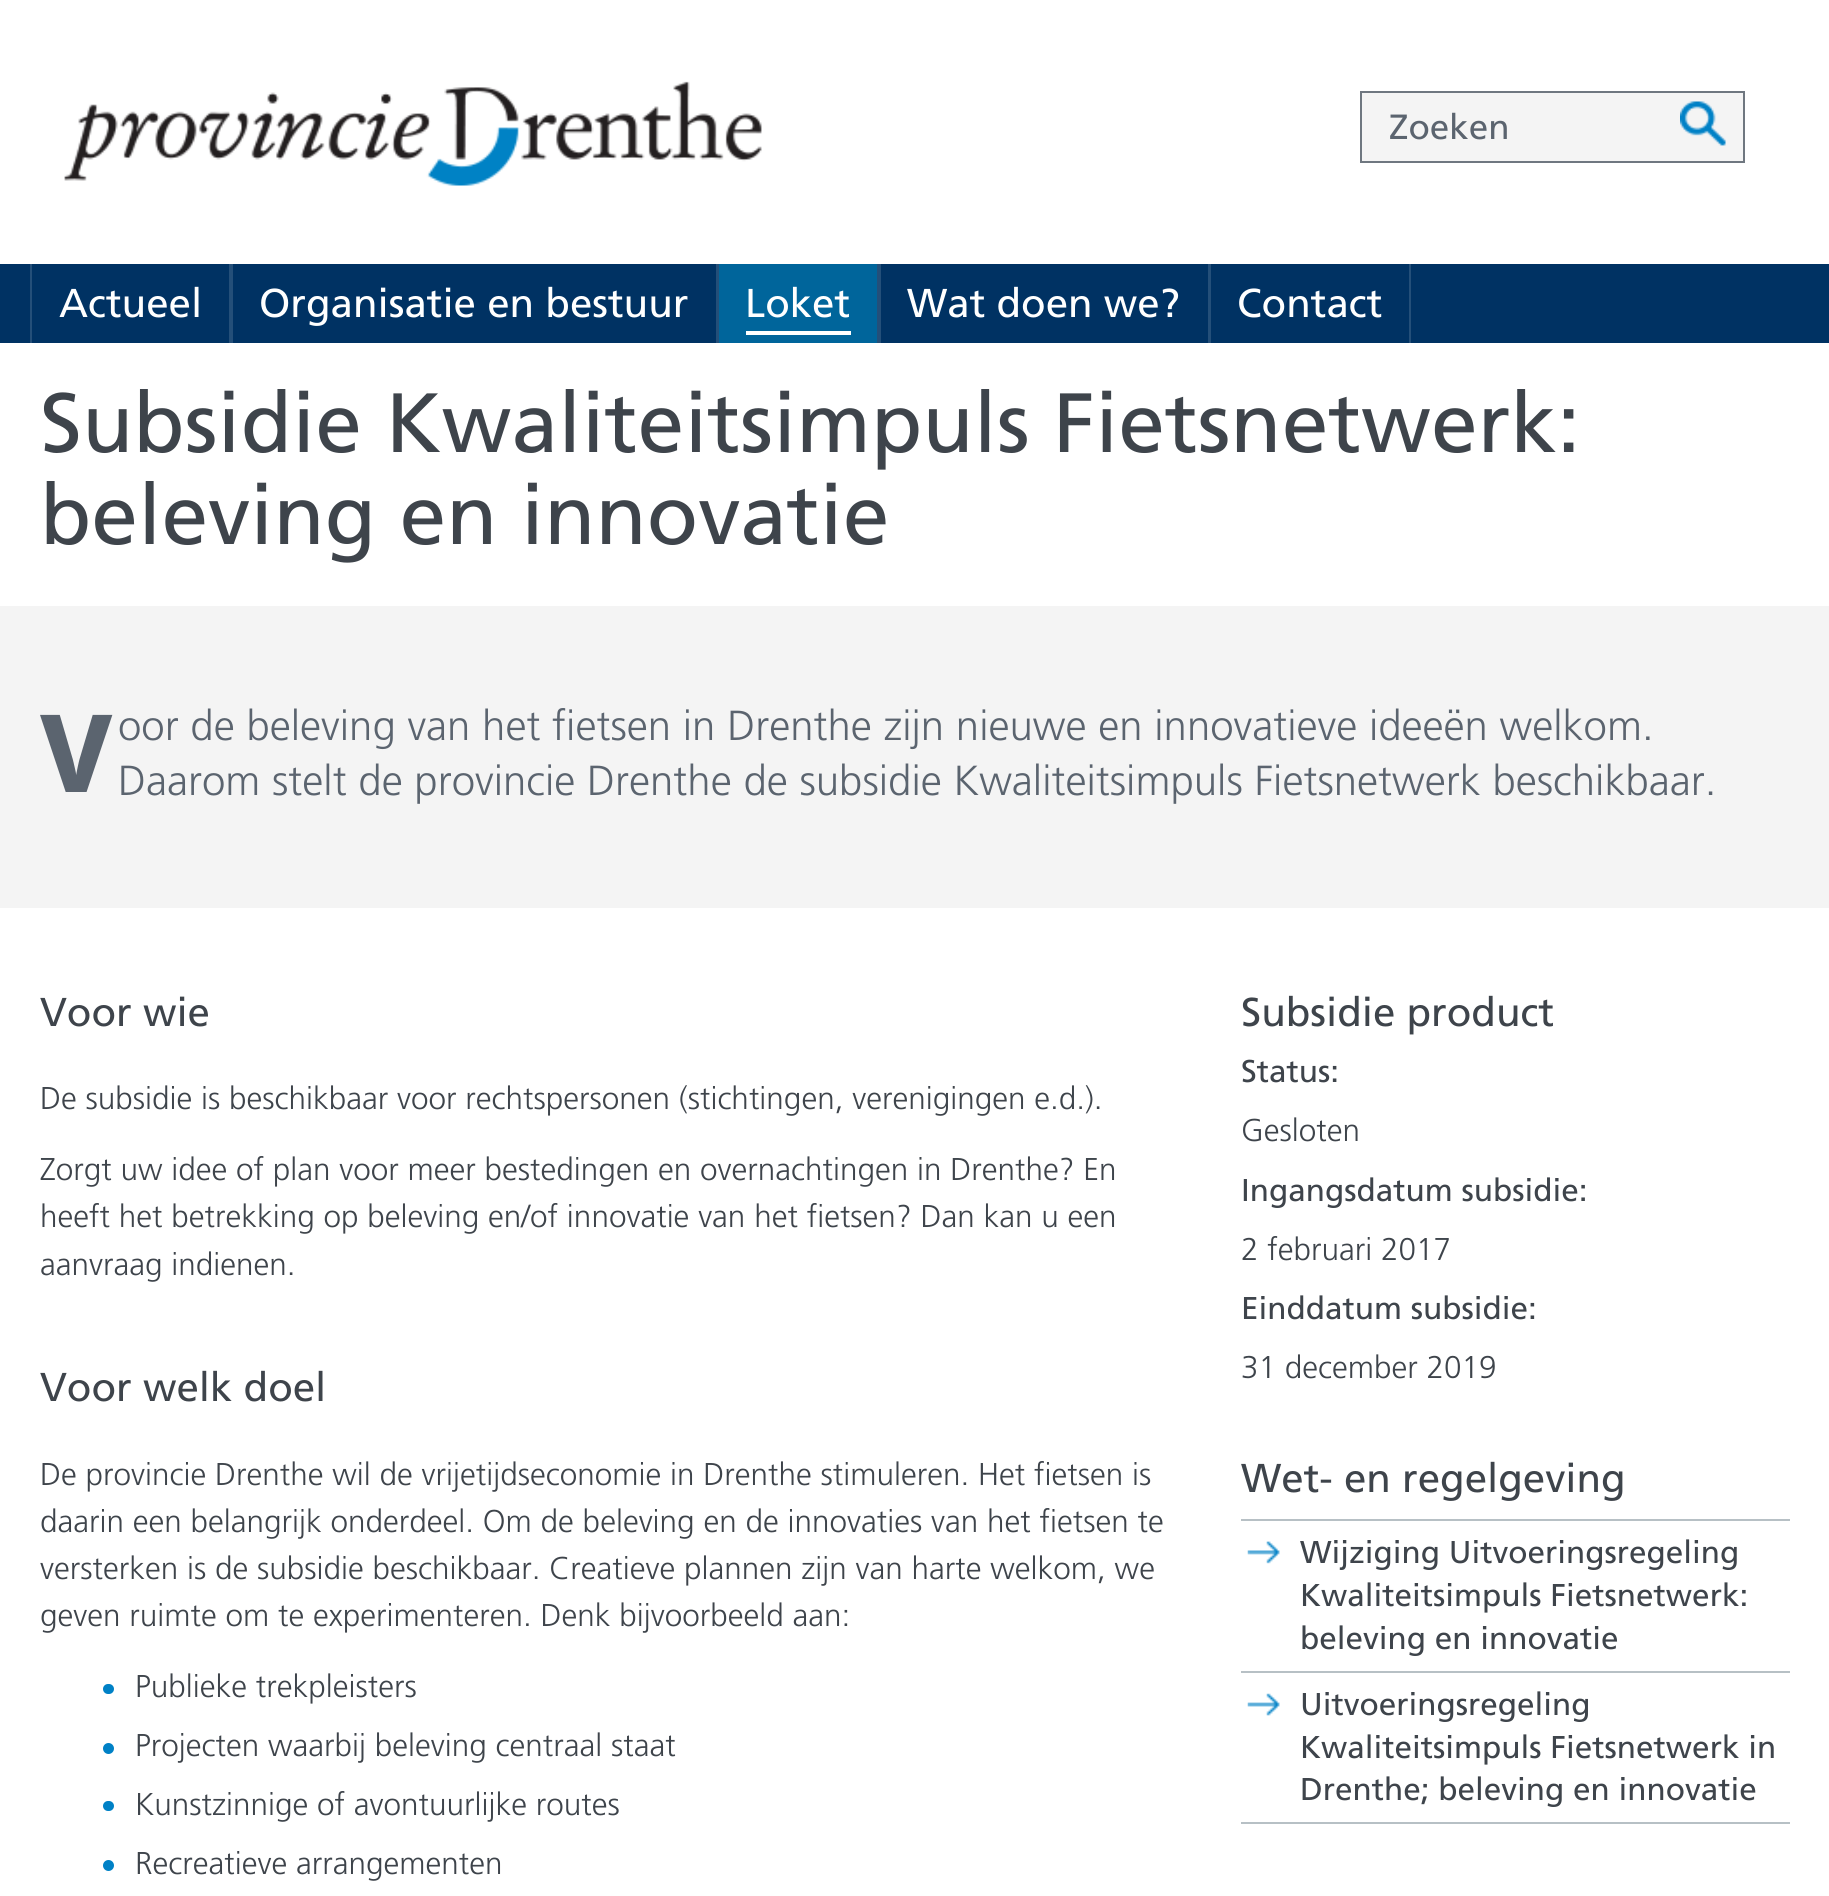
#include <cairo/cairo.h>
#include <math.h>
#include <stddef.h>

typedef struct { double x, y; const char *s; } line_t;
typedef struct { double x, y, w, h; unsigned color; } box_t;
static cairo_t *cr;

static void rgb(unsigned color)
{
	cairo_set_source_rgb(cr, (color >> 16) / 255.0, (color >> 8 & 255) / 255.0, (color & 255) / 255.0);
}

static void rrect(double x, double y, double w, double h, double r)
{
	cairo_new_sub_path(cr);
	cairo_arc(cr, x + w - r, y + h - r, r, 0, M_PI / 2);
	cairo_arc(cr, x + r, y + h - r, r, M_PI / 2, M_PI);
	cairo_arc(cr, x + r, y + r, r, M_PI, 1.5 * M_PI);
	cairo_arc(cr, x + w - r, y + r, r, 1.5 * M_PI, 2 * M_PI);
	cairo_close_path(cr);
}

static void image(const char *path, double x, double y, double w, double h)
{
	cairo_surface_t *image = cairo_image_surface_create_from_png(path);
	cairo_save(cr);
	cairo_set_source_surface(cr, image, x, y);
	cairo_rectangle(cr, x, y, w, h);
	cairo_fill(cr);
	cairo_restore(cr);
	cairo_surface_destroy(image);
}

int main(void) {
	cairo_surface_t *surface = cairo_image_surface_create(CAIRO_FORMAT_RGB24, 1829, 1896);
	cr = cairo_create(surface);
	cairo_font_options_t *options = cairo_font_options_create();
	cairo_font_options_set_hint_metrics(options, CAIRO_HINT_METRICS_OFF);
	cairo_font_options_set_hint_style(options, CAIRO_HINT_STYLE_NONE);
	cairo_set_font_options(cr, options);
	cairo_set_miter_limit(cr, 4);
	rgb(0xffffff);
	cairo_paint(cr);
	image("img/1.png", 64, 81, 698, 105);
	rgb(0xf4f4f4);
	cairo_rectangle(cr, 1361, 92, 383, 70);
	cairo_fill_preserve(cr);
	rgb(0x6f7780);
	cairo_stroke(cr);
	image("img/2.png", 1680, 101, 46, 45);
	{
		static const box_t items[] = {
			{0, 264, 1829, 79, 0x003263},
			{229, 264, 4, 79, 0x244f79},
			{30, 264, 2, 79, 0x244f79},
			{716, 264, 3, 79, 0x244f79},
			{877, 264, 4, 79, 0x244f79},
			{719, 264, 158, 79, 0x00659b},
			{746, 331, 105, 4, 0xffffff},
			{1208, 264, 3, 79, 0x244f79},
			{1409, 264, 2, 79, 0x244f79},
			{0, 606, 1829, 302, 0xf4f4f4},
		};
		for (size_t i = 0; i < sizeof items / sizeof *items; i++) {
			rgb(items[i].color);
			cairo_rectangle(cr, items[i].x, items[i].y, items[i].w, items[i].h);
			cairo_fill(cr);
		}
	}
	rgb(0x0081c6);
	rrect(103, 1684, 11, 10, 5);
	cairo_fill(cr);
	cairo_arc(cr, 108.5, 1748.5, 5.5, 0, 2 * M_PI);
	cairo_fill(cr);
	rrect(103, 1801, 11, 10, 5);
	cairo_fill(cr);
	cairo_arc(cr, 108.5, 1865.5, 5.5, 0, 2 * M_PI);
	cairo_fill(cr);
	rgb(0xb7c0c5);
	cairo_rectangle(cr, 1241, 1519, 549, 2);
	cairo_fill(cr);
	cairo_rectangle(cr, 1241, 1671, 549, 2);
	cairo_fill(cr);
	image("img/3.png", 1247, 1541, 33, 23);
	cairo_rectangle(cr, 1241, 1822, 549, 2);
	cairo_fill(cr);
	image("img/4.png", 1247, 1693, 33, 23);
	cairo_select_font_face(cr, "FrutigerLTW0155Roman", CAIRO_FONT_SLANT_NORMAL, CAIRO_FONT_WEIGHT_NORMAL);
	cairo_set_font_size(cr, 35);
	rgb(0x5b646f);
	cairo_move_to(cr, 1389, 139);
	cairo_show_text(cr, "Zoeken");
	cairo_set_font_size(cr, 40.25);
	rgb(0xffffff);
	{
		static const line_t items[] = {
			{59, 317, "Actueel"},
			{259, 317, "Organisatie en bestuur"},
			{745, 317, "Loket"},
			{907, 317, "Wat doen we?"},
			{1237, 317, "Contact"},
		};
		for (size_t i = 0; i < sizeof items / sizeof *items; i++) {
			cairo_move_to(cr, items[i].x, items[i].y);
			cairo_show_text(cr, items[i].s);
		}
	}
	cairo_set_font_size(cr, 84);
	rgb(0x3e444b);
	cairo_move_to(cr, 40, 452);
	cairo_show_text(cr, "Subsidie Kwaliteitsimpuls Fietsnetwerk:");
	cairo_move_to(cr, 40, 544);
	cairo_show_text(cr, "beleving en innovatie");
	cairo_select_font_face(cr, "Noto Sans ExtraBold", CAIRO_FONT_SLANT_NORMAL, CAIRO_FONT_WEIGHT_NORMAL);
	cairo_set_font_size(cr, 108);
	rgb(0x5b646f);
	cairo_move_to(cr, 40, 792);
	cairo_show_text(cr, "V");
	cairo_select_font_face(cr, "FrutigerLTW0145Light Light", CAIRO_FONT_SLANT_NORMAL, CAIRO_FONT_WEIGHT_NORMAL);
	cairo_set_font_size(cr, 42);
	cairo_move_to(cr, 118, 740);
	cairo_show_text(cr, "oor de beleving van het fietsen in Drenthe zijn nieuwe en innovatieve ideeën welkom.");
	cairo_move_to(cr, 118, 795);
	cairo_show_text(cr, "Daarom stelt de provincie Drenthe de subsidie Kwaliteitsimpuls Fietsnetwerk beschikbaar.");
	cairo_select_font_face(cr, "FrutigerLTW0155Roman", CAIRO_FONT_SLANT_NORMAL, CAIRO_FONT_WEIGHT_NORMAL);
	cairo_set_font_size(cr, 40.25);
	rgb(0x3e444b);
	cairo_move_to(cr, 40, 1026);
	cairo_show_text(cr, "Voor wie");
	cairo_select_font_face(cr, "FrutigerLTW0145Light Light", CAIRO_FONT_SLANT_NORMAL, CAIRO_FONT_WEIGHT_NORMAL);
	cairo_set_font_size(cr, 31.5);
	{
		static const line_t items[] = {
			{40, 1109, "De subsidie is beschikbaar voor rechtspersonen (stichtingen, verenigingen e.d.)."},
			{40, 1180, "Zorgt uw idee of plan voor meer bestedingen en overnachtingen in Drenthe? En"},
			{40, 1227, "heeft het betrekking op beleving en/of innovatie van het fietsen? Dan kan u een"},
			{40, 1275, "aanvraag indienen."},
		};
		for (size_t i = 0; i < sizeof items / sizeof *items; i++) {
			cairo_move_to(cr, items[i].x, items[i].y);
			cairo_show_text(cr, items[i].s);
		}
	}
	cairo_select_font_face(cr, "FrutigerLTW0155Roman", CAIRO_FONT_SLANT_NORMAL, CAIRO_FONT_WEIGHT_NORMAL);
	cairo_set_font_size(cr, 40.25);
	cairo_move_to(cr, 40, 1401);
	cairo_show_text(cr, "Voor welk doel");
	cairo_select_font_face(cr, "FrutigerLTW0145Light Light", CAIRO_FONT_SLANT_NORMAL, CAIRO_FONT_WEIGHT_NORMAL);
	cairo_set_font_size(cr, 31.5);
	{
		static const line_t items[] = {
			{40, 1485, "De provincie Drenthe wil de vrijetijdseconomie in Drenthe stimuleren. Het fietsen is"},
			{40, 1532, "daarin een belangrijk onderdeel. Om de beleving en de innovaties van het fietsen te"},
			{40, 1579, "versterken is de subsidie beschikbaar. Creatieve plannen zijn van harte welkom, we"},
			{40, 1626, "geven ruimte om te experimenteren. Denk bijvoorbeeld aan:"},
			{135, 1697, "Publieke trekpleisters"},
			{135, 1756, "Projecten waarbij beleving centraal staat"},
			{135, 1815, "Kunstzinnige of avontuurlijke routes"},
			{135, 1874, "Recreatieve arrangementen"},
		};
		for (size_t i = 0; i < sizeof items / sizeof *items; i++) {
			cairo_move_to(cr, items[i].x, items[i].y);
			cairo_show_text(cr, items[i].s);
		}
	}
	cairo_select_font_face(cr, "FrutigerLTW0155Roman", CAIRO_FONT_SLANT_NORMAL, CAIRO_FONT_WEIGHT_NORMAL);
	cairo_set_font_size(cr, 40.25);
	cairo_move_to(cr, 1241, 1026);
	cairo_show_text(cr, "Subsidie product");
	cairo_set_font_size(cr, 31.5);
	cairo_move_to(cr, 1241, 1082);
	cairo_show_text(cr, "Status:");
	cairo_select_font_face(cr, "FrutigerLTW0145Light Light", CAIRO_FONT_SLANT_NORMAL, CAIRO_FONT_WEIGHT_NORMAL);
	cairo_move_to(cr, 1241, 1141);
	cairo_show_text(cr, "Gesloten");
	cairo_select_font_face(cr, "FrutigerLTW0155Roman", CAIRO_FONT_SLANT_NORMAL, CAIRO_FONT_WEIGHT_NORMAL);
	cairo_move_to(cr, 1241, 1201);
	cairo_show_text(cr, "Ingangsdatum subsidie:");
	cairo_select_font_face(cr, "FrutigerLTW0145Light Light", CAIRO_FONT_SLANT_NORMAL, CAIRO_FONT_WEIGHT_NORMAL);
	cairo_move_to(cr, 1241, 1260);
	cairo_show_text(cr, "2 februari 2017");
	cairo_select_font_face(cr, "FrutigerLTW0155Roman", CAIRO_FONT_SLANT_NORMAL, CAIRO_FONT_WEIGHT_NORMAL);
	cairo_move_to(cr, 1241, 1319);
	cairo_show_text(cr, "Einddatum subsidie:");
	cairo_select_font_face(cr, "FrutigerLTW0145Light Light", CAIRO_FONT_SLANT_NORMAL, CAIRO_FONT_WEIGHT_NORMAL);
	cairo_move_to(cr, 1241, 1378);
	cairo_show_text(cr, "31 december 2019");
	cairo_select_font_face(cr, "FrutigerLTW0155Roman", CAIRO_FONT_SLANT_NORMAL, CAIRO_FONT_WEIGHT_NORMAL);
	cairo_set_font_size(cr, 40.25);
	cairo_move_to(cr, 1241, 1492);
	cairo_show_text(cr, "Wet- en regelgeving");
	cairo_set_font_size(cr, 31.5);
	{
		static const line_t items[] = {
			{1300, 1563, "Wijziging Uitvoeringsregeling"},
			{1300, 1606, "Kwaliteitsimpuls Fietsnetwerk:"},
			{1300, 1649, "beleving en innovatie"},
			{1300, 1715, "Uitvoeringsregeling"},
			{1300, 1758, "Kwaliteitsimpuls Fietsnetwerk in"},
			{1300, 1800, "Drenthe; beleving en innovatie"},
		};
		for (size_t i = 0; i < sizeof items / sizeof *items; i++) {
			cairo_move_to(cr, items[i].x, items[i].y);
			cairo_show_text(cr, items[i].s);
		}
	}
	cairo_surface_write_to_png(surface, "page.png");
	cairo_font_options_destroy(options);
	cairo_destroy(cr);
	cairo_surface_destroy(surface);
	return 0;
}
